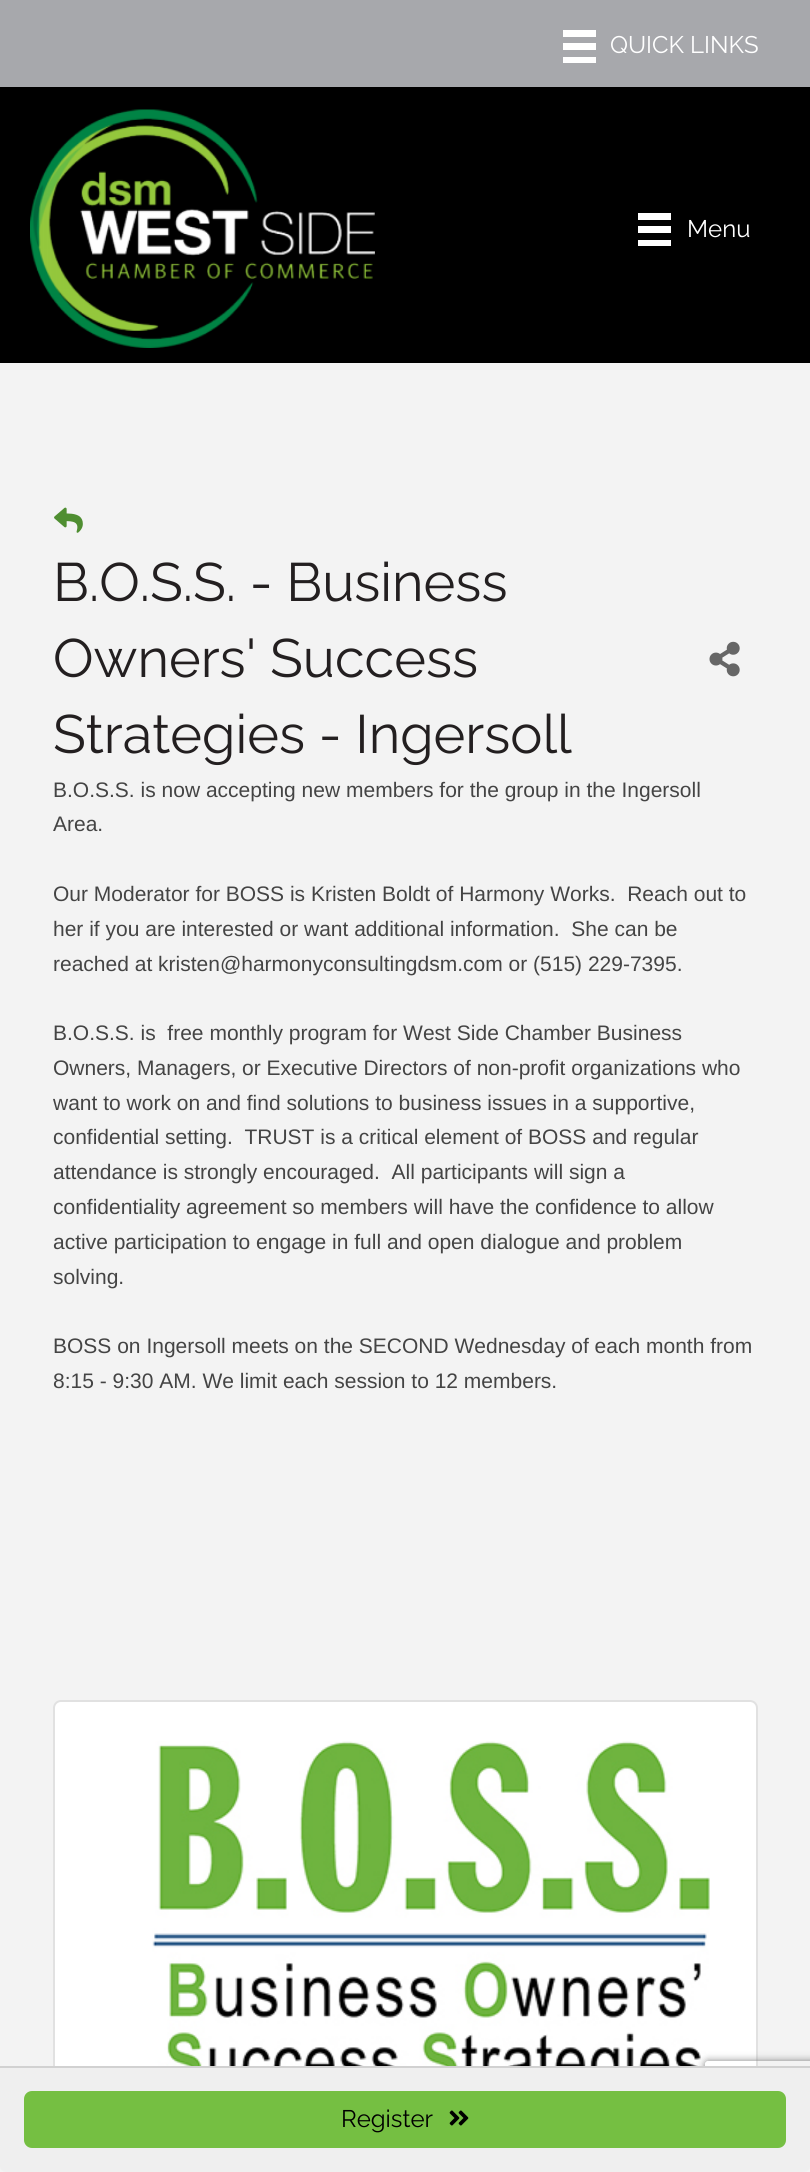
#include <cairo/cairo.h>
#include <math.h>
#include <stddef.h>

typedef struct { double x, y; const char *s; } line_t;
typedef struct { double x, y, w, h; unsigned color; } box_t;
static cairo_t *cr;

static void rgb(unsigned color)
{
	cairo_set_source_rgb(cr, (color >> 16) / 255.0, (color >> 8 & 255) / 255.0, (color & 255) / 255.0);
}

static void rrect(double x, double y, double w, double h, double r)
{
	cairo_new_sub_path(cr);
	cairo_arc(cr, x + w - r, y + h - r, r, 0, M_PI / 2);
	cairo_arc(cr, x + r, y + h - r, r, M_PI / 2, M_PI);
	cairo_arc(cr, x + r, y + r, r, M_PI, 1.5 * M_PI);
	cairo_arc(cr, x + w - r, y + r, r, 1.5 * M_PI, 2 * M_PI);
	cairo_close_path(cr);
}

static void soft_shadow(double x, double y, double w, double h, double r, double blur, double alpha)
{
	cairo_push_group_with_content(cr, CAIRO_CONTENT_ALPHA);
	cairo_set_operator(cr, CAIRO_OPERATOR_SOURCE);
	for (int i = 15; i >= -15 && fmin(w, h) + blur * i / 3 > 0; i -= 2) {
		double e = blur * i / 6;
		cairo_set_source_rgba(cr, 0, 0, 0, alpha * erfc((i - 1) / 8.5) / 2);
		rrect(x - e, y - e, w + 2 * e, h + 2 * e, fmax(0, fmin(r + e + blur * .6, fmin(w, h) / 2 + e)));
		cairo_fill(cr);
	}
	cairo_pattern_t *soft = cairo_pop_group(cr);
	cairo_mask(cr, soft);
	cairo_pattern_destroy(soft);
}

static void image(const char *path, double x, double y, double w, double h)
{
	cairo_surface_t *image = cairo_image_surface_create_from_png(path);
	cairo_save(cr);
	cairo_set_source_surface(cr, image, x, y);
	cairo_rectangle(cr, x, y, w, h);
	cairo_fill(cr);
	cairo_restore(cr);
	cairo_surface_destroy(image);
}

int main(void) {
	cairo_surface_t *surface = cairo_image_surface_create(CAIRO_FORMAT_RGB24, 810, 2172);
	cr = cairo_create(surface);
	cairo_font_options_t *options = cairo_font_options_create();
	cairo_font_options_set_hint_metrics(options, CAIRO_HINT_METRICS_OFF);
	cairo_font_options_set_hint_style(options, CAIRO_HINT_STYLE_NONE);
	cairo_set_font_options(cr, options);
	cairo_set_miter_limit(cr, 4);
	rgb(0xa7a8ac);
	cairo_paint(cr);
	{
		static const box_t items[] = {
			{563, 30, 33, 7, 0xffffff},
			{563, 43, 33, 7, 0xffffff},
			{563, 57, 33, 6, 0xffffff},
			{0, 87, 810, 276, 0x000000},
		};
		for (size_t i = 0; i < sizeof items / sizeof *items; i++) {
			rgb(items[i].color);
			cairo_rectangle(cr, items[i].x, items[i].y, items[i].w, items[i].h);
			cairo_fill(cr);
		}
	}
	image("img/1.png", 30, 109, 345, 239);
	{
		static const box_t items[] = {
			{638, 213, 33, 7, 0xffffff},
			{638, 226, 33, 7, 0xffffff},
			{638, 240, 33, 6, 0xffffff},
			{0, 363, 810, 1809, 0xf3f3f3},
		};
		for (size_t i = 0; i < sizeof items / sizeof *items; i++) {
			rgb(items[i].color);
			cairo_rectangle(cr, items[i].x, items[i].y, items[i].w, items[i].h);
			cairo_fill(cr);
		}
	}
	image("img/2.png", 54, 507, 29, 26);
	image("img/3.png", 709, 641, 31, 36);
	rgb(0xffffff);
	rrect(53, 1700, 705, 450, 8);
	cairo_fill(cr);
	rrect(54, 1701, 703, 448, 7);
	cairo_set_source_rgba(cr, 0, 0, 0, 0.12);
	cairo_stroke(cr);
	image("img/4.png", 152, 1741, 558, 325);
	cairo_save(cr);
	cairo_set_fill_rule(cr, CAIRO_FILL_RULE_EVEN_ODD);
	cairo_new_path(cr);
	cairo_move_to(cr, 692, 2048);
	cairo_line_to(cr, 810, 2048);
	cairo_line_to(cr, 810, 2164);
	cairo_line_to(cr, 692, 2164);
	cairo_close_path(cr);
	cairo_move_to(cr, 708, 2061);
	cairo_line_to(cr, 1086, 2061);
	cairo_curve_to(cr, 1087.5, 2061, 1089, 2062.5, 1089, 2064);
	cairo_line_to(cr, 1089, 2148);
	cairo_curve_to(cr, 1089, 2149.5, 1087.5, 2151, 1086, 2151);
	cairo_line_to(cr, 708, 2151);
	cairo_curve_to(cr, 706.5, 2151, 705, 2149.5, 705, 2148);
	cairo_line_to(cr, 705, 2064);
	cairo_curve_to(cr, 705, 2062.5, 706.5, 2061, 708, 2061);
	cairo_close_path(cr);
	cairo_clip(cr);
	rgb(0x808080);
	soft_shadow(705, 2061, 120, 90, 3, 4, 1);
	cairo_restore(cr);
	rgb(0xefefef);
	cairo_new_path(cr);
	cairo_move_to(cr, 0, 2066);
	cairo_line_to(cr, 810, 2066);
	cairo_line_to(cr, 810, 2166);
	cairo_curve_to(cr, 810, 2169.5, 807.5, 2172, 804, 2172);
	cairo_line_to(cr, 6, 2172);
	cairo_curve_to(cr, 2.5, 2172, 0, 2169.5, 0, 2166);
	cairo_close_path(cr);
	cairo_fill(cr);
	rgb(0xd1d1d1);
	cairo_rectangle(cr, 0, 2066, 810, 2);
	cairo_fill(cr);
	rgb(0x75bf42);
	rrect(25, 2092, 760, 55, 7);
	cairo_fill_preserve(cr);
	cairo_stroke(cr);
	image("img/5.png", 449, 2110, 20, 16);
	cairo_select_font_face(cr, "Raleway", CAIRO_FONT_SLANT_NORMAL, CAIRO_FONT_WEIGHT_NORMAL);
	cairo_set_font_size(cr, 24);
	rgb(0xffffff);
	cairo_move_to(cr, 610, 53);
	cairo_show_text(cr, "QUICK LINKS");
	cairo_move_to(cr, 687, 237);
	cairo_show_text(cr, "Menu");
	cairo_set_font_size(cr, 54);
	rgb(0x231f20);
	{
		static const line_t items[] = {
			{53, 601, "B.O.S.S. - Business"},
			{53, 677, "Owners' Success"},
			{53, 753, "Strategies - Ingersoll"},
		};
		for (size_t i = 0; i < sizeof items / sizeof *items; i++) {
			cairo_move_to(cr, items[i].x, items[i].y);
			cairo_show_text(cr, items[i].s);
		}
	}
	cairo_select_font_face(cr, "Liberation Sans", CAIRO_FONT_SLANT_NORMAL, CAIRO_FONT_WEIGHT_NORMAL);
	cairo_set_font_size(cr, 21);
	rgb(0x444444);
	{
		static const line_t items[] = {
			{53, 797, "B.O.S.S. is now accepting new members for the group in the Ingersoll"},
			{53, 831, "Area."},
			{53, 901, "Our Moderator for BOSS is Kristen Boldt of Harmony Works.  Reach out to"},
			{53, 936, "her if you are interested or want additional information.  She can be"},
			{53, 971, "reached at kristen@harmonyconsultingdsm.com or (515) 229-7395."},
			{53, 1040, "B.O.S.S. is  free monthly program for West Side Chamber Business"},
			{53, 1075, "Owners, Managers, or Executive Directors of non-profit organizations who"},
			{53, 1110, "want to work on and find solutions to business issues in a supportive,"},
			{53, 1144, "confidential setting.  TRUST is a critical element of BOSS and regular"},
			{53, 1179, "attendance is strongly encouraged.  All participants will sign a"},
			{53, 1214, "confidentiality agreement so members will have the confidence to allow"},
			{53, 1249, "active participation to engage in full and open dialogue and problem"},
			{53, 1284, "solving."},
			{53, 1353, "BOSS on Ingersoll meets on the SECOND Wednesday of each month from"},
			{53, 1388, "8:15 - 9:30 AM. We limit each session to 12 members."},
		};
		for (size_t i = 0; i < sizeof items / sizeof *items; i++) {
			cairo_move_to(cr, items[i].x, items[i].y);
			cairo_show_text(cr, items[i].s);
		}
	}
	cairo_select_font_face(cr, "Raleway", CAIRO_FONT_SLANT_NORMAL, CAIRO_FONT_WEIGHT_NORMAL);
	cairo_set_font_size(cr, 24);
	rgb(0x000000);
	cairo_move_to(cr, 341, 2127);
	cairo_show_text(cr, "Register");
	cairo_surface_write_to_png(surface, "page.png");
	cairo_font_options_destroy(options);
	cairo_destroy(cr);
	cairo_surface_destroy(surface);
	return 0;
}
